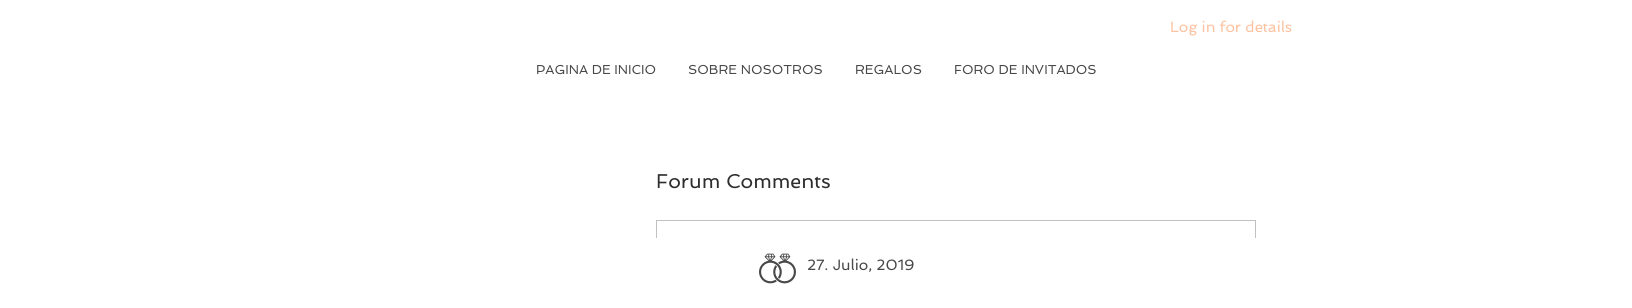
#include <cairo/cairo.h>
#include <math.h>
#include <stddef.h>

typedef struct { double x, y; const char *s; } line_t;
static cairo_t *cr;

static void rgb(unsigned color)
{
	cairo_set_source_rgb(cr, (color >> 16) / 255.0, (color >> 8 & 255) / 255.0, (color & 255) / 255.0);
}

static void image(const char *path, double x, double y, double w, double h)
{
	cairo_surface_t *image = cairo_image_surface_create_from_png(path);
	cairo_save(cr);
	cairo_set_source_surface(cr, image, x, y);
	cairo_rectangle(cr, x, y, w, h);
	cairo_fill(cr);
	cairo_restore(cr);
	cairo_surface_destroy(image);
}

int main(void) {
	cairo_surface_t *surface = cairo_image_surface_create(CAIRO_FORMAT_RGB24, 1632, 308);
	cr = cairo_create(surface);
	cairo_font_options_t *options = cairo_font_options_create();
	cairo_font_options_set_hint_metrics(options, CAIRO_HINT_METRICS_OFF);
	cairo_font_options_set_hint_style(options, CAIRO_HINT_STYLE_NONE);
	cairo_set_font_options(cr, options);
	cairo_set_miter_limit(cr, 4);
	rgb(0xffffff);
	cairo_paint(cr);
	cairo_rectangle(cr, 656.5, 220.5, 599, 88);
	rgb(0xc1c0c0);
	cairo_set_line_width(cr, 1);
	cairo_stroke(cr);
	rgb(0xffffff);
	cairo_rectangle(cr, 656, 238, 600, 70);
	cairo_fill(cr);
	image("img/1.png", 759, 253, 37, 31);
	cairo_select_font_face(cr, "Spinnaker", CAIRO_FONT_SLANT_NORMAL, CAIRO_FONT_WEIGHT_NORMAL);
	cairo_set_font_size(cr, 15);
	rgb(0xffc2a0);
	cairo_move_to(cr, 1170, 32);
	cairo_show_text(cr, "Log in for details");
	cairo_set_font_size(cr, 13);
	rgb(0x494848);
	{
		static const line_t items[] = {
			{536, 74, "PAGINA DE INICIO"},
			{688, 74, "SOBRE NOSOTROS"},
			{855, 74, "REGALOS"},
			{954, 74, "FORO DE INVITADOS"},
		};
		for (size_t i = 0; i < sizeof items / sizeof *items; i++) {
			cairo_move_to(cr, items[i].x, items[i].y);
			cairo_show_text(cr, items[i].s);
		}
	}
	cairo_set_font_size(cr, 20);
	rgb(0x2f2e2e);
	cairo_move_to(cr, 656, 188);
	cairo_show_text(cr, "Forum Comments");
	cairo_set_font_size(cr, 15);
	rgb(0x494848);
	cairo_move_to(cr, 807, 270);
	cairo_show_text(cr, "27. Julio, 2019");
	cairo_surface_write_to_png(surface, "page.png");
	cairo_font_options_destroy(options);
	cairo_destroy(cr);
	cairo_surface_destroy(surface);
	return 0;
}
